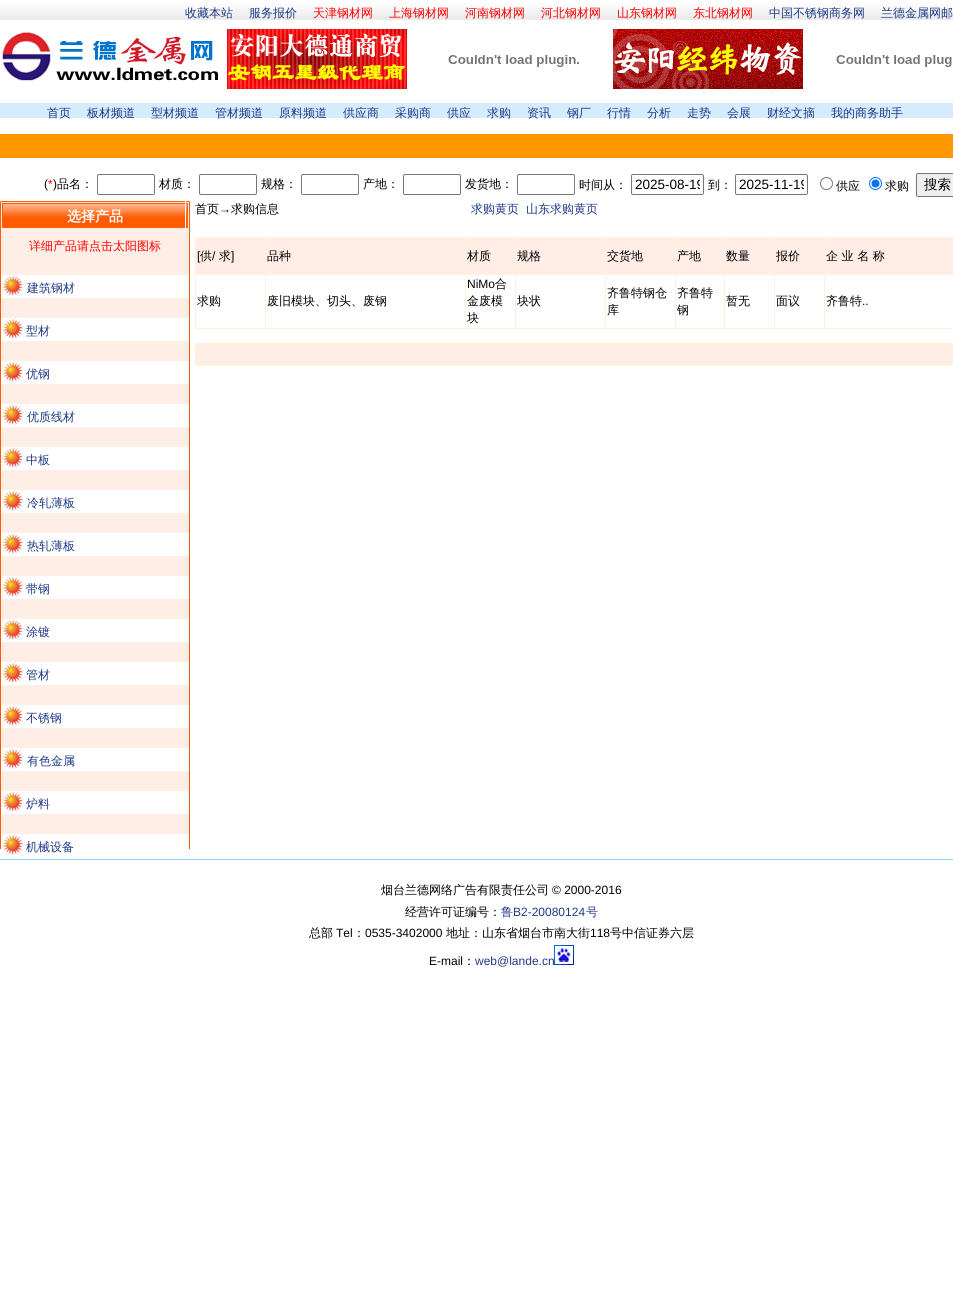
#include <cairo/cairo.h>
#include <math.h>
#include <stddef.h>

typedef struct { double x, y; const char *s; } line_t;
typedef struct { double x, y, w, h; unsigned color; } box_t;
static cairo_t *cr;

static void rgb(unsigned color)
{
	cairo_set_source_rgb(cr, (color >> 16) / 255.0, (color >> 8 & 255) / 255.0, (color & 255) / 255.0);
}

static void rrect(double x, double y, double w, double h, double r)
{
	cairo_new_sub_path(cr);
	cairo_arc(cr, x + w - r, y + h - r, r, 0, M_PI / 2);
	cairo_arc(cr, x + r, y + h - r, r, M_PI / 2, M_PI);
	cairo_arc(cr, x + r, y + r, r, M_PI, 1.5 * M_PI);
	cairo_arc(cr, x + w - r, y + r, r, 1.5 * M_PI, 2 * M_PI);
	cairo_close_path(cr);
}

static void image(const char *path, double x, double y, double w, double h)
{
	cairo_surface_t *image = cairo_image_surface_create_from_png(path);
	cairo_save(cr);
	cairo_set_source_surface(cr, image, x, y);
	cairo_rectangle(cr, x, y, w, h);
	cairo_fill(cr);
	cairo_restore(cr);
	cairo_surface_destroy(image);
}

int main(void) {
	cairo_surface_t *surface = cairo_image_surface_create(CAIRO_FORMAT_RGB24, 953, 1308);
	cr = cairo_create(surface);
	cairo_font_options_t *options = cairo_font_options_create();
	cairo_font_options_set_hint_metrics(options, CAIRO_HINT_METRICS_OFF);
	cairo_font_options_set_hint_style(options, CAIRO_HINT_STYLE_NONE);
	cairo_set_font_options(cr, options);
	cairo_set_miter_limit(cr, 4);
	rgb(0xffffff);
	cairo_paint(cr);
	rgb(0xebebeb);
	cairo_rectangle(cr, 0, 16, 953, 4);
	cairo_fill(cr);
	image("img/1.png", 0, 0, 953, 16);
	image("img/2.png", 2, 32, 216, 49);
	image("img/3.png", 227, 29, 180, 60);
	image("img/4.png", 448, 55, 131, 12);
	image("img/5.png", 613, 29, 190, 60);
	image("img/6.png", 836, 55, 116, 12);
	rgb(0xd7ebff);
	cairo_rectangle(cr, 0, 103, 953, 15);
	cairo_fill(cr);
	rgb(0xff9700);
	cairo_rectangle(cr, 0, 134, 953, 24);
	cairo_fill(cr);
	rrect(97.5, 174.5, 57, 20, 1.5);
	rgb(0x767676);
	cairo_set_line_width(cr, 1);
	cairo_stroke(cr);
	rrect(199.5, 174.5, 57, 20, 1.5);
	cairo_stroke(cr);
	rrect(301.5, 174.5, 57, 20, 1.5);
	cairo_stroke(cr);
	rrect(403.5, 174.5, 57, 20, 1.5);
	cairo_stroke(cr);
	rrect(517.5, 174.5, 57, 20, 1.5);
	cairo_stroke(cr);
	rrect(631.5, 174.5, 72, 20, 1.5);
	cairo_stroke(cr);
	rrect(735.5, 174.5, 72, 20, 1.5);
	cairo_stroke(cr);
	cairo_arc(cr, 826.5, 183.5, 6, 0, 2 * M_PI);
	cairo_stroke(cr);
	cairo_arc(cr, 875.5, 183.5, 6, 0, 2 * M_PI);
	rgb(0x0075ff);
	cairo_stroke(cr);
	cairo_arc(cr, 875.5, 183.5, 4, 0, 2 * M_PI);
	cairo_fill(cr);
	rgb(0xefefef);
	rrect(916.5, 173.5, 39, 23, 1.5);
	cairo_fill_preserve(cr);
	rgb(0x767676);
	cairo_stroke(cr);
	image("img/7.png", 0, 201, 5, 27);
	image("img/8.png", 5, 201, 180, 27);
	image("img/9.png", 186, 201, 4, 27);
	{
		static const box_t items[] = {
			{1, 228, 188, 606, 0xffeee6},
			{189, 228, 1, 621, 0xff5b02},
			{0, 228, 1, 621, 0xff5b02},
			{1, 275, 188, 23, 0xffffff},
		};
		for (size_t i = 0; i < sizeof items / sizeof *items; i++) {
			rgb(items[i].color);
			cairo_rectangle(cr, items[i].x, items[i].y, items[i].w, items[i].h);
			cairo_fill(cr);
		}
	}
	image("img/10.png", 3, 276, 20, 20);
	cairo_rectangle(cr, 1, 318, 188, 23);
	cairo_fill(cr);
	image("img/10.png", 3, 319, 20, 20);
	cairo_rectangle(cr, 1, 361, 188, 23);
	cairo_fill(cr);
	image("img/10.png", 3, 362, 20, 20);
	cairo_rectangle(cr, 1, 404, 188, 23);
	cairo_fill(cr);
	image("img/10.png", 3, 405, 20, 20);
	cairo_rectangle(cr, 1, 447, 188, 23);
	cairo_fill(cr);
	image("img/10.png", 3, 448, 20, 20);
	cairo_rectangle(cr, 1, 490, 188, 23);
	cairo_fill(cr);
	image("img/10.png", 3, 491, 20, 20);
	cairo_rectangle(cr, 1, 533, 188, 23);
	cairo_fill(cr);
	image("img/10.png", 3, 534, 20, 20);
	cairo_rectangle(cr, 1, 576, 188, 23);
	cairo_fill(cr);
	image("img/10.png", 3, 577, 20, 20);
	cairo_rectangle(cr, 1, 619, 188, 23);
	cairo_fill(cr);
	image("img/10.png", 3, 620, 20, 20);
	cairo_rectangle(cr, 1, 662, 188, 23);
	cairo_fill(cr);
	image("img/10.png", 3, 663, 20, 20);
	cairo_rectangle(cr, 1, 705, 188, 23);
	cairo_fill(cr);
	image("img/10.png", 3, 706, 20, 20);
	cairo_rectangle(cr, 1, 748, 188, 23);
	cairo_fill(cr);
	image("img/10.png", 3, 749, 20, 20);
	cairo_rectangle(cr, 1, 791, 188, 23);
	cairo_fill(cr);
	image("img/10.png", 3, 792, 20, 20);
	image("img/10.png", 3, 835, 20, 20);
	{
		static const box_t items[] = {
			{195, 237, 758, 1, 0xfff1de},
			{195, 237, 1, 92, 0xfff1de},
			{196, 238, 757, 36, 0xffede6},
			{824, 274, 129, 1, 0xfff1de},
			{824, 328, 129, 1, 0xfff1de},
			{824, 274, 1, 55, 0xfff1de},
			{774, 274, 51, 1, 0xfff1de},
			{774, 328, 51, 1, 0xfff1de},
			{774, 274, 1, 55, 0xfff1de},
			{724, 274, 51, 1, 0xfff1de},
			{724, 328, 51, 1, 0xfff1de},
			{724, 274, 1, 55, 0xfff1de},
			{675, 274, 50, 1, 0xfff1de},
			{675, 328, 50, 1, 0xfff1de},
			{675, 274, 1, 55, 0xfff1de},
			{605, 274, 71, 1, 0xfff1de},
			{605, 328, 71, 1, 0xfff1de},
			{605, 274, 1, 55, 0xfff1de},
			{515, 274, 91, 1, 0xfff1de},
			{515, 328, 91, 1, 0xfff1de},
			{515, 274, 1, 55, 0xfff1de},
			{465, 274, 51, 1, 0xfff1de},
			{465, 328, 51, 1, 0xfff1de},
			{465, 274, 1, 55, 0xfff1de},
			{265, 274, 201, 1, 0xfff1de},
			{265, 328, 201, 1, 0xfff1de},
			{265, 274, 1, 55, 0xfff1de},
			{195, 274, 71, 1, 0xfff1de},
			{265, 237, 1, 38, 0xfff1de},
			{465, 237, 1, 38, 0xfff1de},
			{515, 237, 1, 38, 0xfff1de},
			{605, 237, 1, 38, 0xfff1de},
			{675, 237, 1, 38, 0xfff1de},
			{724, 237, 1, 38, 0xfff1de},
			{774, 237, 1, 38, 0xfff1de},
			{824, 237, 1, 38, 0xfff1de},
			{195, 328, 71, 1, 0xfff1de},
		};
		for (size_t i = 0; i < sizeof items / sizeof *items; i++) {
			rgb(items[i].color);
			cairo_rectangle(cr, items[i].x, items[i].y, items[i].w, items[i].h);
			cairo_fill(cr);
		}
	}
	cairo_rectangle(cr, 196.5, 344.5, 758, 20);
	cairo_set_line_width(cr, 3);
	cairo_stroke(cr);
	rgb(0xffede6);
	cairo_rectangle(cr, 198, 346, 755, 17);
	cairo_fill(cr);
	rgb(0x99ccf0);
	cairo_rectangle(cr, 0, 859, 953, 1);
	cairo_fill(cr);
	image("img/11.png", 554, 945, 20, 20);
	cairo_select_font_face(cr, "WenQuanYi Zen Hei Medium", CAIRO_FONT_SLANT_NORMAL, CAIRO_FONT_WEIGHT_NORMAL);
	cairo_set_font_size(cr, 12);
	rgb(0x1f3a87);
	cairo_move_to(cr, 185, 17);
	cairo_show_text(cr, "收藏本站");
	cairo_move_to(cr, 249, 17);
	cairo_show_text(cr, "服务报价");
	rgb(0xff0000);
	{
		static const line_t items[] = {
			{313, 17, "天津钢材网"},
			{389, 17, "上海钢材网"},
			{465, 17, "河南钢材网"},
			{541, 17, "河北钢材网"},
			{617, 17, "山东钢材网"},
			{693, 17, "东北钢材网"},
		};
		for (size_t i = 0; i < sizeof items / sizeof *items; i++) {
			cairo_move_to(cr, items[i].x, items[i].y);
			cairo_show_text(cr, items[i].s);
		}
	}
	rgb(0x1f3a87);
	{
		static const line_t items[] = {
			{769, 17, "中国不锈钢商务网"},
			{881, 17, "兰德金属网邮"},
			{47, 117, "首页"},
			{87, 117, "板材频道"},
			{151, 117, "型材频道"},
			{215, 117, "管材频道"},
			{279, 117, "原料频道"},
			{343, 117, "供应商"},
			{395, 117, "采购商"},
			{447, 117, "供应"},
			{487, 117, "求购"},
			{527, 117, "资讯"},
			{567, 117, "钢厂"},
			{607, 117, "行情"},
			{647, 117, "分析"},
			{687, 117, "走势"},
			{727, 117, "会展"},
			{767, 117, "财经文摘"},
			{831, 117, "我的商务助手"},
		};
		for (size_t i = 0; i < sizeof items / sizeof *items; i++) {
			cairo_move_to(cr, items[i].x, items[i].y);
			cairo_show_text(cr, items[i].s);
		}
	}
	cairo_select_font_face(cr, "Liberation Sans", CAIRO_FONT_SLANT_NORMAL, CAIRO_FONT_WEIGHT_NORMAL);
	rgb(0x000000);
	cairo_move_to(cr, 44, 188);
	cairo_show_text(cr, "(");
	rgb(0xff0000);
	cairo_move_to(cr, 48, 188);
	cairo_show_text(cr, "*");
	rgb(0x000000);
	cairo_move_to(cr, 53, 188);
	cairo_show_text(cr, ")");
	cairo_select_font_face(cr, "WenQuanYi Zen Hei Medium", CAIRO_FONT_SLANT_NORMAL, CAIRO_FONT_WEIGHT_NORMAL);
	{
		static const line_t items[] = {
			{57, 188, "品名："},
			{159, 188, "材质："},
			{261, 188, "规格："},
			{363, 188, "产地："},
			{465, 188, "发货地："},
			{579, 189, "时间从："},
		};
		for (size_t i = 0; i < sizeof items / sizeof *items; i++) {
			cairo_move_to(cr, items[i].x, items[i].y);
			cairo_show_text(cr, items[i].s);
		}
	}
	cairo_save(cr);
	cairo_rectangle(cr, 635, 177, 65, 15);
	cairo_clip(cr);
	cairo_select_font_face(cr, "Liberation Sans", CAIRO_FONT_SLANT_NORMAL, CAIRO_FONT_WEIGHT_NORMAL);
	cairo_set_font_size(cr, 13.5);
	cairo_move_to(cr, 635, 189);
	cairo_show_text(cr, "2025-08-19");
	cairo_restore(cr);
	cairo_move_to(cr, 708, 189);
	cairo_show_text(cr, "到：");
	cairo_save(cr);
	cairo_rectangle(cr, 739, 177, 65, 15);
	cairo_clip(cr);
	cairo_select_font_face(cr, "Liberation Sans", CAIRO_FONT_SLANT_NORMAL, CAIRO_FONT_WEIGHT_NORMAL);
	cairo_set_font_size(cr, 13.5);
	cairo_move_to(cr, 739, 189);
	cairo_show_text(cr, "2025-11-19");
	cairo_restore(cr);
	cairo_move_to(cr, 836, 190);
	cairo_show_text(cr, "供应");
	cairo_move_to(cr, 885, 190);
	cairo_show_text(cr, "求购");
	cairo_set_font_size(cr, 13.5);
	cairo_move_to(cr, 924, 189);
	cairo_show_text(cr, "搜索");
	cairo_select_font_face(cr, "WenQuanYi Zen Hei", CAIRO_FONT_SLANT_NORMAL, CAIRO_FONT_WEIGHT_BOLD);
	cairo_set_font_size(cr, 14);
	rgb(0xffffff);
	cairo_move_to(cr, 67, 221);
	cairo_show_text(cr, "选择产品");
	cairo_select_font_face(cr, "WenQuanYi Zen Hei Medium", CAIRO_FONT_SLANT_NORMAL, CAIRO_FONT_WEIGHT_NORMAL);
	cairo_set_font_size(cr, 12);
	rgb(0xff0000);
	cairo_move_to(cr, 29, 250);
	cairo_show_text(cr, "详细产品请点击太阳图标");
	rgb(0x1f3a87);
	{
		static const line_t items[] = {
			{27, 292, "建筑钢材"},
			{26, 335, "型材"},
			{26, 378, "优钢"},
			{27, 421, "优质线材"},
			{26, 464, "中板"},
			{27, 507, "冷轧薄板"},
			{27, 550, "热轧薄板"},
			{26, 593, "带钢"},
			{26, 636, "涂镀"},
			{26, 679, "管材"},
			{26, 722, "不锈钢"},
			{27, 765, "有色金属"},
			{26, 808, "炉料"},
			{26, 851, "机械设备"},
		};
		for (size_t i = 0; i < sizeof items / sizeof *items; i++) {
			cairo_move_to(cr, items[i].x, items[i].y);
			cairo_show_text(cr, items[i].s);
		}
	}
	rgb(0x000000);
	cairo_move_to(cr, 195, 213);
	cairo_show_text(cr, "首页");
	cairo_select_font_face(cr, "Liberation Sans", CAIRO_FONT_SLANT_NORMAL, CAIRO_FONT_WEIGHT_NORMAL);
	cairo_move_to(cr, 219, 213);
	cairo_show_text(cr, "→");
	cairo_select_font_face(cr, "WenQuanYi Zen Hei Medium", CAIRO_FONT_SLANT_NORMAL, CAIRO_FONT_WEIGHT_NORMAL);
	cairo_move_to(cr, 231, 213);
	cairo_show_text(cr, "求购信息");
	rgb(0x1f3a87);
	cairo_move_to(cr, 471, 213);
	cairo_show_text(cr, "求购黄页");
	cairo_move_to(cr, 526, 213);
	cairo_show_text(cr, "山东求购黄页");
	cairo_select_font_face(cr, "Liberation Sans", CAIRO_FONT_SLANT_NORMAL, CAIRO_FONT_WEIGHT_NORMAL);
	rgb(0x000000);
	cairo_move_to(cr, 197, 260);
	cairo_show_text(cr, "[");
	cairo_select_font_face(cr, "WenQuanYi Zen Hei Medium", CAIRO_FONT_SLANT_NORMAL, CAIRO_FONT_WEIGHT_NORMAL);
	cairo_move_to(cr, 200, 260);
	cairo_show_text(cr, "供");
	cairo_select_font_face(cr, "Liberation Sans", CAIRO_FONT_SLANT_NORMAL, CAIRO_FONT_WEIGHT_NORMAL);
	cairo_move_to(cr, 212, 260);
	cairo_show_text(cr, "/");
	cairo_select_font_face(cr, "WenQuanYi Zen Hei Medium", CAIRO_FONT_SLANT_NORMAL, CAIRO_FONT_WEIGHT_NORMAL);
	cairo_move_to(cr, 219, 260);
	cairo_show_text(cr, "求");
	cairo_select_font_face(cr, "Liberation Sans", CAIRO_FONT_SLANT_NORMAL, CAIRO_FONT_WEIGHT_NORMAL);
	cairo_move_to(cr, 231, 260);
	cairo_show_text(cr, "]");
	cairo_select_font_face(cr, "WenQuanYi Zen Hei Medium", CAIRO_FONT_SLANT_NORMAL, CAIRO_FONT_WEIGHT_NORMAL);
	{
		static const line_t items[] = {
			{267, 260, "品种"},
			{467, 260, "材质"},
			{517, 260, "规格"},
			{607, 260, "交货地"},
			{677, 260, "产地"},
			{726, 260, "数量"},
			{776, 260, "报价"},
			{826, 260, "企 业 名 称"},
			{197, 305, "求购"},
			{267, 305, "废旧模块、切头、废钢"},
		};
		for (size_t i = 0; i < sizeof items / sizeof *items; i++) {
			cairo_move_to(cr, items[i].x, items[i].y);
			cairo_show_text(cr, items[i].s);
		}
	}
	cairo_select_font_face(cr, "Liberation Sans", CAIRO_FONT_SLANT_NORMAL, CAIRO_FONT_WEIGHT_NORMAL);
	cairo_move_to(cr, 467, 288);
	cairo_show_text(cr, "NiMo");
	cairo_select_font_face(cr, "WenQuanYi Zen Hei Medium", CAIRO_FONT_SLANT_NORMAL, CAIRO_FONT_WEIGHT_NORMAL);
	{
		static const line_t items[] = {
			{495, 288, "合"},
			{467, 305, "金废模"},
			{467, 322, "块"},
			{517, 305, "块状"},
			{607, 297, "齐鲁特钢仓"},
			{607, 314, "库"},
			{677, 297, "齐鲁特"},
			{677, 314, "钢"},
			{726, 305, "暂无"},
			{776, 305, "面议"},
			{826, 305, "齐鲁特"},
		};
		for (size_t i = 0; i < sizeof items / sizeof *items; i++) {
			cairo_move_to(cr, items[i].x, items[i].y);
			cairo_show_text(cr, items[i].s);
		}
	}
	cairo_select_font_face(cr, "Liberation Sans", CAIRO_FONT_SLANT_NORMAL, CAIRO_FONT_WEIGHT_NORMAL);
	cairo_move_to(cr, 862, 305);
	cairo_show_text(cr, "..");
	cairo_select_font_face(cr, "WenQuanYi Zen Hei Medium", CAIRO_FONT_SLANT_NORMAL, CAIRO_FONT_WEIGHT_NORMAL);
	cairo_move_to(cr, 381, 894);
	cairo_show_text(cr, "烟台兰德网络广告有限责任公司");
	cairo_select_font_face(cr, "Liberation Sans", CAIRO_FONT_SLANT_NORMAL, CAIRO_FONT_WEIGHT_NORMAL);
	cairo_move_to(cr, 552, 894);
	cairo_show_text(cr, "© 2000-2016");
	cairo_select_font_face(cr, "WenQuanYi Zen Hei Medium", CAIRO_FONT_SLANT_NORMAL, CAIRO_FONT_WEIGHT_NORMAL);
	cairo_move_to(cr, 405, 916);
	cairo_show_text(cr, "经营许可证编号：");
	rgb(0x1f3a87);
	cairo_move_to(cr, 501, 916);
	cairo_show_text(cr, "鲁");
	cairo_select_font_face(cr, "Liberation Sans", CAIRO_FONT_SLANT_NORMAL, CAIRO_FONT_WEIGHT_NORMAL);
	cairo_move_to(cr, 513, 916);
	cairo_show_text(cr, "B2-20080124");
	cairo_select_font_face(cr, "WenQuanYi Zen Hei Medium", CAIRO_FONT_SLANT_NORMAL, CAIRO_FONT_WEIGHT_NORMAL);
	cairo_move_to(cr, 586, 916);
	cairo_show_text(cr, "号");
	rgb(0x000000);
	cairo_move_to(cr, 309, 937);
	cairo_show_text(cr, "总部");
	cairo_select_font_face(cr, "Liberation Sans", CAIRO_FONT_SLANT_NORMAL, CAIRO_FONT_WEIGHT_NORMAL);
	cairo_move_to(cr, 336, 937);
	cairo_show_text(cr, "Tel");
	cairo_select_font_face(cr, "WenQuanYi Zen Hei Medium", CAIRO_FONT_SLANT_NORMAL, CAIRO_FONT_WEIGHT_NORMAL);
	cairo_move_to(cr, 353, 937);
	cairo_show_text(cr, "：");
	cairo_select_font_face(cr, "Liberation Sans", CAIRO_FONT_SLANT_NORMAL, CAIRO_FONT_WEIGHT_NORMAL);
	cairo_move_to(cr, 365, 937);
	cairo_show_text(cr, "0535-3402000");
	cairo_select_font_face(cr, "WenQuanYi Zen Hei Medium", CAIRO_FONT_SLANT_NORMAL, CAIRO_FONT_WEIGHT_NORMAL);
	cairo_move_to(cr, 446, 937);
	cairo_show_text(cr, "地址：山东省烟台市南大街");
	cairo_select_font_face(cr, "Liberation Sans", CAIRO_FONT_SLANT_NORMAL, CAIRO_FONT_WEIGHT_NORMAL);
	cairo_move_to(cr, 590, 937);
	cairo_show_text(cr, "118");
	cairo_select_font_face(cr, "WenQuanYi Zen Hei Medium", CAIRO_FONT_SLANT_NORMAL, CAIRO_FONT_WEIGHT_NORMAL);
	cairo_move_to(cr, 610, 937);
	cairo_show_text(cr, "号中信证券六层");
	cairo_select_font_face(cr, "Liberation Sans", CAIRO_FONT_SLANT_NORMAL, CAIRO_FONT_WEIGHT_NORMAL);
	cairo_move_to(cr, 429, 965);
	cairo_show_text(cr, "E-mail");
	cairo_select_font_face(cr, "WenQuanYi Zen Hei Medium", CAIRO_FONT_SLANT_NORMAL, CAIRO_FONT_WEIGHT_NORMAL);
	cairo_move_to(cr, 463, 965);
	cairo_show_text(cr, "：");
	cairo_select_font_face(cr, "Liberation Sans", CAIRO_FONT_SLANT_NORMAL, CAIRO_FONT_WEIGHT_NORMAL);
	rgb(0x1f3a87);
	cairo_move_to(cr, 475, 965);
	cairo_show_text(cr, "web@lande.cn");
	cairo_surface_write_to_png(surface, "page.png");
	cairo_font_options_destroy(options);
	cairo_destroy(cr);
	cairo_surface_destroy(surface);
	return 0;
}
